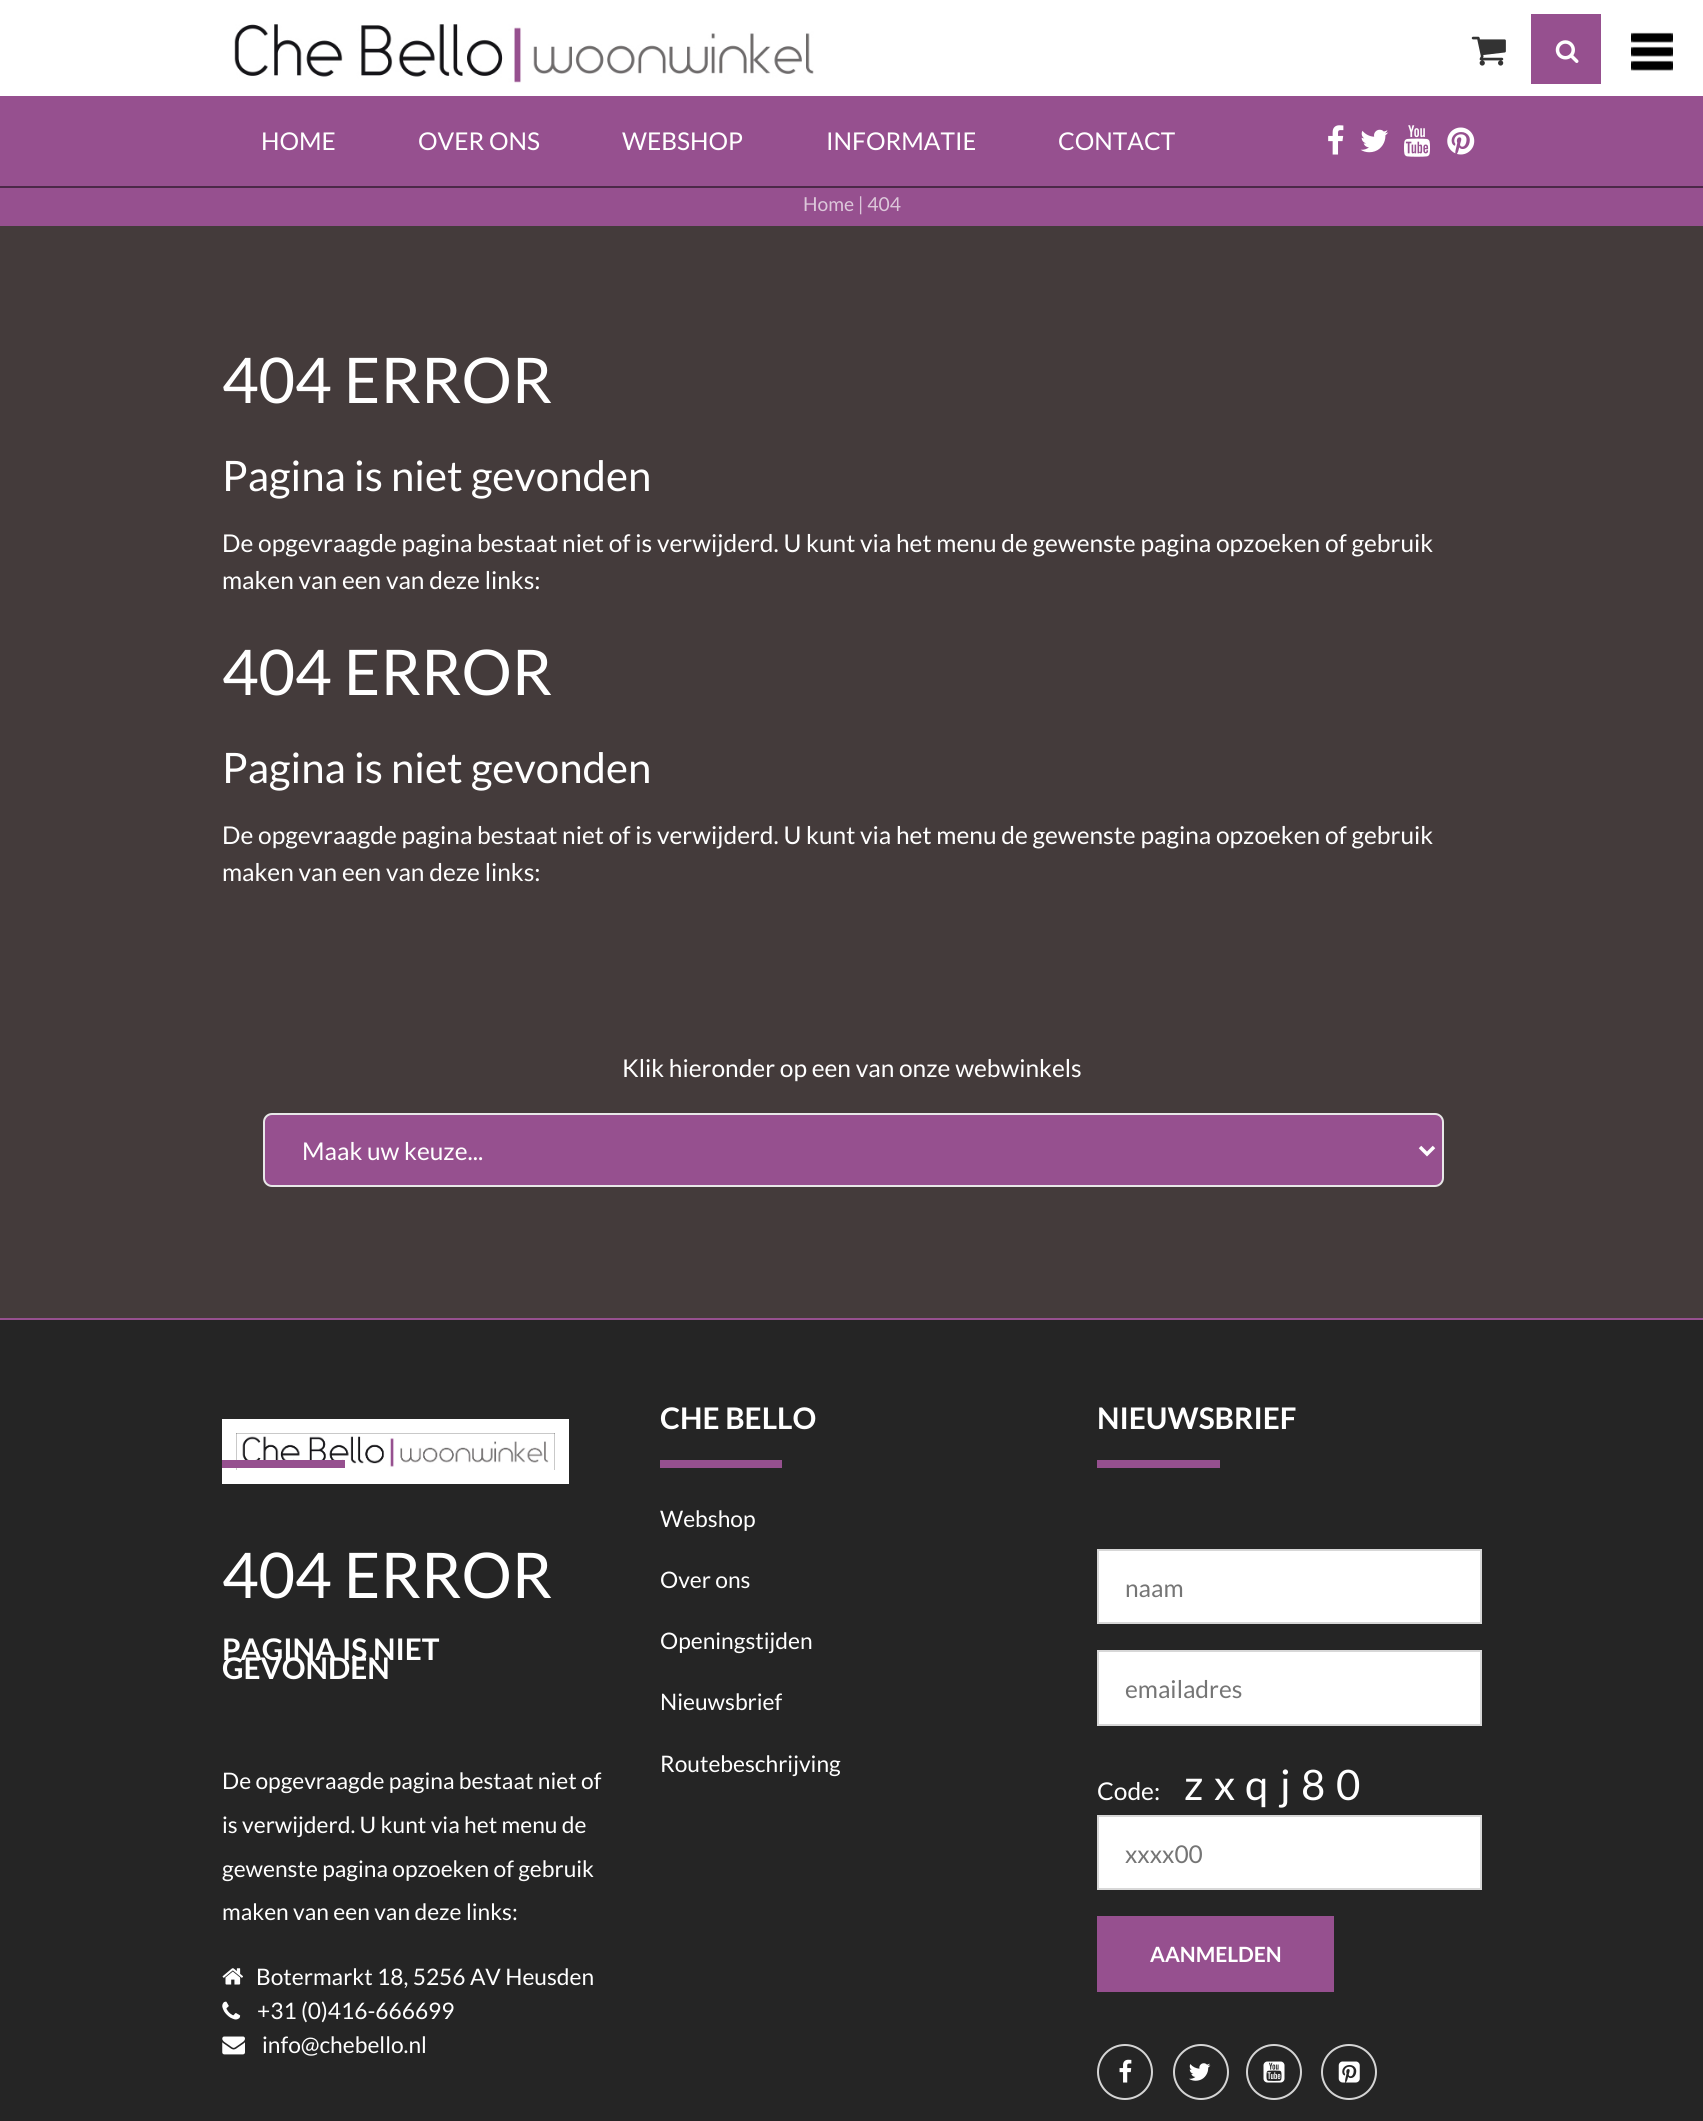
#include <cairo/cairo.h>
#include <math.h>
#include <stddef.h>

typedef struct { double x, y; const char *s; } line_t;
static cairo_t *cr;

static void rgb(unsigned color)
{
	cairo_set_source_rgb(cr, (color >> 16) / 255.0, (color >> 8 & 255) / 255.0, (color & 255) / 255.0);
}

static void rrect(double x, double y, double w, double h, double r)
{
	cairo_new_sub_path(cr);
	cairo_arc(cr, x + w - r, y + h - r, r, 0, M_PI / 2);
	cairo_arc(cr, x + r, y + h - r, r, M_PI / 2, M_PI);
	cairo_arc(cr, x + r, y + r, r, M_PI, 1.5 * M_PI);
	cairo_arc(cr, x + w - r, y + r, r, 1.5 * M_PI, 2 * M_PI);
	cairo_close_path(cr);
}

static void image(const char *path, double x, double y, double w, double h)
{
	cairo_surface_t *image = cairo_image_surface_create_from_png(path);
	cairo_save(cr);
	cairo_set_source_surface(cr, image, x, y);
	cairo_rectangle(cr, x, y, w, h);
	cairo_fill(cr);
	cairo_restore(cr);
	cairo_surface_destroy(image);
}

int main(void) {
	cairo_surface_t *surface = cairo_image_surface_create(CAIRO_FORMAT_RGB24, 1703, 2121);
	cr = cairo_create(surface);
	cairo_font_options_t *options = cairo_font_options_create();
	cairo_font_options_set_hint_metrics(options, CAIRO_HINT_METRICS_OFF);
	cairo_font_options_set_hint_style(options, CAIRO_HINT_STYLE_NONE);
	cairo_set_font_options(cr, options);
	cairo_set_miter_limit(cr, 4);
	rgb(0x443b3b);
	cairo_paint(cr);
	rgb(0xffffff);
	cairo_rectangle(cr, 0, 0, 1703, 96);
	cairo_fill(cr);
	image("img/1.png", 234, 24, 580, 59);
	image("img/2.png", 1471, 36, 35, 30);
	rgb(0x96508f);
	cairo_rectangle(cr, 1531, 14, 70, 70);
	cairo_fill(cr);
	image("img/3.png", 1555, 40, 24, 23);
	image("img/4.png", 1631, 32, 42, 39);
	cairo_rectangle(cr, 0, 96, 1703, 90);
	cairo_fill(cr);
	image("img/5.png", 1328, 125, 16, 30);
	image("img/6.png", 1360, 129, 29, 24);
	image("img/7.png", 1404, 125, 26, 32);
	image("img/8.png", 1447, 127, 28, 28);
	cairo_rectangle(cr, 0, 188, 1703, 38);
	cairo_fill(cr);
	rgb(0x4b2848);
	cairo_rectangle(cr, 0, 186, 1703, 2);
	cairo_fill(cr);
	rgb(0x96508f);
	rrect(264, 1114, 1179, 72, 8);
	cairo_fill_preserve(cr);
	rgb(0xe8e8e8);
	cairo_stroke(cr);
	cairo_new_path(cr);
	cairo_move_to(cr, 1420, 1147);
	cairo_line_to(cr, 1427, 1154);
	cairo_line_to(cr, 1434, 1147);
	rgb(0xffffff);
	cairo_set_line_width(cr, 3.5);
	cairo_stroke(cr);
	rgb(0x252525);
	cairo_rectangle(cr, 0, 1320, 1703, 801);
	cairo_fill(cr);
	rgb(0x96508f);
	cairo_rectangle(cr, 0, 1318, 1703, 2);
	cairo_fill(cr);
	cairo_rectangle(cr, 229, 1426, 333, 51);
	rgb(0xffffff);
	cairo_set_line_width(cr, 14);
	cairo_stroke(cr);
	image("img/9.png", 236, 1433, 319, 37);
	rgb(0x96508f);
	cairo_rectangle(cr, 222, 1460, 123, 8);
	cairo_fill(cr);
	image("img/10.png", 222, 1968, 21, 17);
	image("img/11.png", 222, 2001, 19, 19);
	image("img/12.png", 222, 2036, 23, 19);
	cairo_rectangle(cr, 660, 1460, 122, 8);
	cairo_fill(cr);
	cairo_rectangle(cr, 1097, 1460, 123, 8);
	cairo_fill(cr);
	rgb(0xffffff);
	cairo_rectangle(cr, 1098, 1550, 383, 73);
	cairo_fill_preserve(cr);
	rgb(0xd7d7d7);
	cairo_set_line_width(cr, 2);
	cairo_stroke(cr);
	rgb(0xffffff);
	cairo_rectangle(cr, 1098, 1651, 383, 74);
	cairo_fill_preserve(cr);
	rgb(0xd7d7d7);
	cairo_stroke(cr);
	rgb(0xffffff);
	cairo_rectangle(cr, 1098, 1816, 383, 73);
	cairo_fill_preserve(cr);
	rgb(0xd7d7d7);
	cairo_stroke(cr);
	rgb(0x96508f);
	cairo_rectangle(cr, 1097, 1916, 237, 76);
	cairo_fill(cr);
	cairo_arc(cr, 1125, 2072, 27, 0, 2 * M_PI);
	rgb(0xd5d5d5);
	cairo_stroke(cr);
	image("img/13.png", 1119, 2059, 13, 24);
	cairo_arc(cr, 1201, 2072, 27, 0, 2 * M_PI);
	cairo_stroke(cr);
	image("img/14.png", 1189, 2063, 22, 18);
	cairo_arc(cr, 1274, 2072, 27, 0, 2 * M_PI);
	cairo_stroke(cr);
	image("img/15.png", 1263, 2061, 22, 22);
	cairo_arc(cr, 1349, 2072, 27, 0, 2 * M_PI);
	cairo_stroke(cr);
	image("img/16.png", 1338, 2061, 22, 22);
	cairo_select_font_face(cr, "Lato", CAIRO_FONT_SLANT_NORMAL, CAIRO_FONT_WEIGHT_NORMAL);
	cairo_set_font_size(cr, 24.5);
	rgb(0xffffff);
	{
		static const line_t items[] = {
			{261, 150, "HOME"},
			{418, 150, "OVER ONS"},
			{622, 150, "WEBSHOP"},
			{826, 150, "INFORMATIE"},
			{1058, 150, "CONTACT"},
		};
		for (size_t i = 0; i < sizeof items / sizeof *items; i++) {
			cairo_move_to(cr, items[i].x, items[i].y);
			cairo_show_text(cr, items[i].s);
		}
	}
	cairo_set_font_size(cr, 19.25);
	rgb(0xdcc7da);
	cairo_move_to(cr, 803, 211);
	cairo_show_text(cr, "Home | 404");
	cairo_set_font_size(cr, 63);
	rgb(0xffffff);
	cairo_move_to(cr, 222, 403);
	cairo_show_text(cr, "404 ERROR");
	cairo_set_font_size(cr, 42);
	cairo_move_to(cr, 222, 491);
	cairo_show_text(cr, "Pagina is niet gevonden");
	cairo_set_font_size(cr, 24.5);
	cairo_move_to(cr, 222, 552);
	cairo_show_text(cr, "De opgevraagde pagina bestaat niet of is verwijderd. U kunt via het menu de gewenste pagina opzoeken of gebruik");
	cairo_move_to(cr, 222, 589);
	cairo_show_text(cr, "maken van een van deze links:");
	cairo_set_font_size(cr, 63);
	cairo_move_to(cr, 222, 695);
	cairo_show_text(cr, "404 ERROR");
	cairo_set_font_size(cr, 42);
	cairo_move_to(cr, 222, 783);
	cairo_show_text(cr, "Pagina is niet gevonden");
	cairo_set_font_size(cr, 24.5);
	{
		static const line_t items[] = {
			{222, 844, "De opgevraagde pagina bestaat niet of is verwijderd. U kunt via het menu de gewenste pagina opzoeken of gebruik"},
			{222, 881, "maken van een van deze links:"},
			{622, 1077, "Klik hieronder op een van onze webwinkels"},
			{302, 1160, "Maak uw keuze..."},
		};
		for (size_t i = 0; i < sizeof items / sizeof *items; i++) {
			cairo_move_to(cr, items[i].x, items[i].y);
			cairo_show_text(cr, items[i].s);
		}
	}
	cairo_set_font_size(cr, 63);
	cairo_move_to(cr, 222, 1598);
	cairo_show_text(cr, "404 ERROR");
	cairo_select_font_face(cr, "Lato", CAIRO_FONT_SLANT_NORMAL, CAIRO_FONT_WEIGHT_BOLD);
	cairo_set_font_size(cr, 29.75);
	cairo_move_to(cr, 222, 1660);
	cairo_show_text(cr, "PAGINA IS NIET");
	cairo_move_to(cr, 222, 1679);
	cairo_show_text(cr, "GEVONDEN");
	cairo_select_font_face(cr, "Lato", CAIRO_FONT_SLANT_NORMAL, CAIRO_FONT_WEIGHT_NORMAL);
	cairo_set_font_size(cr, 22.75);
	{
		static const line_t items[] = {
			{222, 1789, "De opgevraagde pagina bestaat niet of"},
			{222, 1833, "is verwijderd. U kunt via het menu de"},
			{222, 1877, "gewenste pagina opzoeken of gebruik"},
			{222, 1920, "maken van een van deze links:"},
			{256, 1985, "Botermarkt 18, 5256 AV Heusden"},
			{257, 2019, "+31 (0)416-666699"},
			{262, 2053, "info@chebello.nl"},
		};
		for (size_t i = 0; i < sizeof items / sizeof *items; i++) {
			cairo_move_to(cr, items[i].x, items[i].y);
			cairo_show_text(cr, items[i].s);
		}
	}
	cairo_select_font_face(cr, "Lato", CAIRO_FONT_SLANT_NORMAL, CAIRO_FONT_WEIGHT_BOLD);
	cairo_set_font_size(cr, 29.75);
	cairo_move_to(cr, 660, 1429);
	cairo_show_text(cr, "CHE BELLO");
	cairo_select_font_face(cr, "Lato", CAIRO_FONT_SLANT_NORMAL, CAIRO_FONT_WEIGHT_NORMAL);
	cairo_set_font_size(cr, 22.75);
	{
		static const line_t items[] = {
			{660, 1527, "Webshop"},
			{660, 1588, "Over ons"},
			{660, 1649, "Openingstijden"},
			{660, 1710, "Nieuwsbrief"},
			{660, 1772, "Routebeschrijving"},
		};
		for (size_t i = 0; i < sizeof items / sizeof *items; i++) {
			cairo_move_to(cr, items[i].x, items[i].y);
			cairo_show_text(cr, items[i].s);
		}
	}
	cairo_select_font_face(cr, "Lato", CAIRO_FONT_SLANT_NORMAL, CAIRO_FONT_WEIGHT_BOLD);
	cairo_set_font_size(cr, 29.75);
	cairo_move_to(cr, 1097, 1429);
	cairo_show_text(cr, "NIEUWSBRIEF");
	cairo_select_font_face(cr, "Lato", CAIRO_FONT_SLANT_NORMAL, CAIRO_FONT_WEIGHT_NORMAL);
	cairo_set_font_size(cr, 24.5);
	rgb(0x757575);
	cairo_move_to(cr, 1125, 1597);
	cairo_show_text(cr, "naam");
	cairo_move_to(cr, 1125, 1698);
	cairo_show_text(cr, "emailadres");
	rgb(0xffffff);
	cairo_move_to(cr, 1097, 1800);
	cairo_show_text(cr, "Code:");
	cairo_set_font_size(cr, 42);
	{
		static const line_t items[] = {
			{1184, 1800, "z"},
			{1214, 1800, "x"},
			{1245, 1800, "q"},
			{1280, 1800, "j"},
			{1301, 1800, "8"},
			{1336, 1800, "0"},
		};
		for (size_t i = 0; i < sizeof items / sizeof *items; i++) {
			cairo_move_to(cr, items[i].x, items[i].y);
			cairo_show_text(cr, items[i].s);
		}
	}
	cairo_set_font_size(cr, 24.5);
	rgb(0x757575);
	cairo_move_to(cr, 1125, 1863);
	cairo_show_text(cr, "xxxx00");
	cairo_select_font_face(cr, "Lato", CAIRO_FONT_SLANT_NORMAL, CAIRO_FONT_WEIGHT_BOLD);
	cairo_set_font_size(cr, 21);
	rgb(0xffffff);
	cairo_move_to(cr, 1150, 1962);
	cairo_show_text(cr, "AANMELDEN");
	cairo_surface_write_to_png(surface, "page.png");
	cairo_font_options_destroy(options);
	cairo_destroy(cr);
	cairo_surface_destroy(surface);
	return 0;
}
